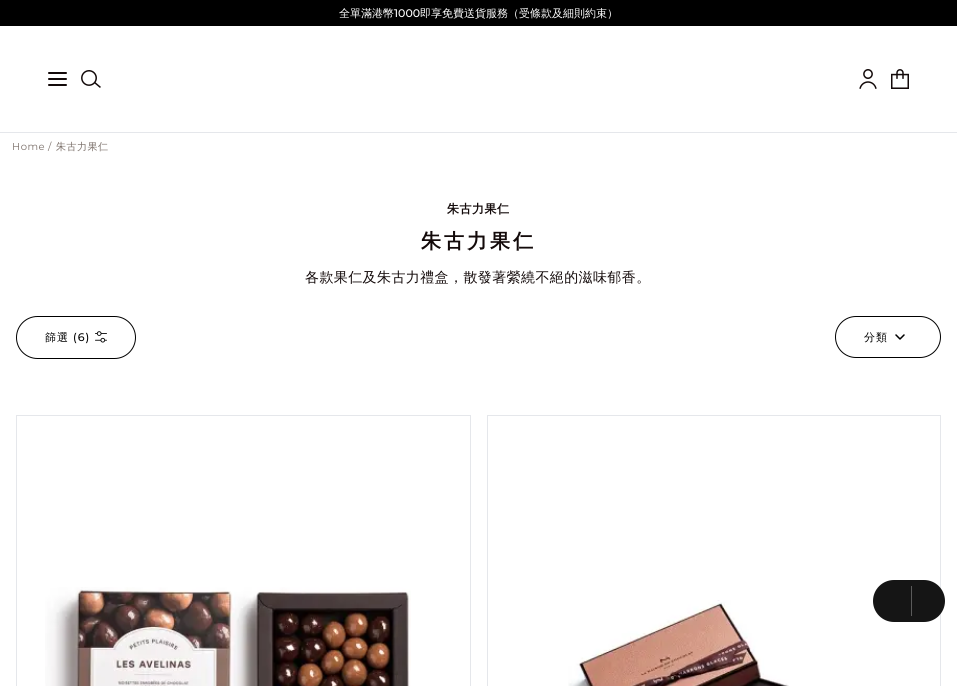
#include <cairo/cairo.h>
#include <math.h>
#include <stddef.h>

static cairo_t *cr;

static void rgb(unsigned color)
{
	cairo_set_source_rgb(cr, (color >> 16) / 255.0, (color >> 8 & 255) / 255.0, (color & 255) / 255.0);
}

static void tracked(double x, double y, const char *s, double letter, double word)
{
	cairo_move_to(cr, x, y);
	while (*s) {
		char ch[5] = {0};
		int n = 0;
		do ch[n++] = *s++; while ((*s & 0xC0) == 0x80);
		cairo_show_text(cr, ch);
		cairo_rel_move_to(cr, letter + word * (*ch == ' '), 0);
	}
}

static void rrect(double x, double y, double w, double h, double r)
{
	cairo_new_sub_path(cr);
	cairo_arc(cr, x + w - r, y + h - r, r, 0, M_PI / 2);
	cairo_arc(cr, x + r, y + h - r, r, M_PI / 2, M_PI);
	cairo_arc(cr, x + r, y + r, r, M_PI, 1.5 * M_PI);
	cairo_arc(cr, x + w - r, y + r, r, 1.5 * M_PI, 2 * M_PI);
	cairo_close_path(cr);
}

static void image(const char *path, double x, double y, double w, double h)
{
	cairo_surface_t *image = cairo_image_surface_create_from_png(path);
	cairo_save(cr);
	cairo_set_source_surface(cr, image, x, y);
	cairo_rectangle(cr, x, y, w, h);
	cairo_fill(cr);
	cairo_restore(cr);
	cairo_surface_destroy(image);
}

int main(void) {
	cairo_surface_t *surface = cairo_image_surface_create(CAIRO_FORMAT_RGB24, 957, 686);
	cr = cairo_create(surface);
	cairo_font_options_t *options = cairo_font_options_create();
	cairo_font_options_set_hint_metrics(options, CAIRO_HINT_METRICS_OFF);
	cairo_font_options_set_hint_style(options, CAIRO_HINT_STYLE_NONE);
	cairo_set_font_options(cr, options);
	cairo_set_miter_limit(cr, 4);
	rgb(0xffffff);
	cairo_paint(cr);
	rgb(0x000000);
	cairo_rectangle(cr, 0, 0, 957, 26);
	cairo_fill(cr);
	rgb(0xe5e7eb);
	cairo_rectangle(cr, 0, 132, 957, 1);
	cairo_fill(cr);
	image("img/1.png", 48, 72, 19, 14);
	image("img/2.png", 81, 70, 20, 18);
	image("img/3.png", 859, 69, 18, 20);
	image("img/4.png", 891, 69, 18, 20);
	cairo_rectangle(cr, 487.5, 415.5, 453, 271);
	cairo_set_line_width(cr, 1);
	cairo_stroke(cr);
	rgb(0x151515);
	rrect(873, 580, 72, 42, 21);
	cairo_fill(cr);
	rgb(0x5b5b5b);
	cairo_rectangle(cr, 911, 586, 1, 30);
	cairo_fill(cr);
	rrect(16.5, 316.5, 119, 42, 21);
	rgb(0x000000);
	cairo_stroke(cr);
	image("img/5.png", 95, 331, 12, 12);
	rrect(835.5, 316.5, 105, 41, 20.5);
	cairo_stroke(cr);
	cairo_new_path(cr);
	cairo_move_to(cr, 904, 335);
	cairo_line_to(cr, 900, 339);
	cairo_line_to(cr, 896, 335);
	cairo_set_line_width(cr, 1.5);
	cairo_set_line_cap(cr, CAIRO_LINE_CAP_ROUND);
	cairo_set_line_join(cr, CAIRO_LINE_JOIN_ROUND);
	cairo_stroke(cr);
	cairo_rectangle(cr, 16.5, 415.5, 454, 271);
	rgb(0xe5e7eb);
	cairo_set_line_width(cr, 1);
	cairo_set_line_cap(cr, CAIRO_LINE_CAP_BUTT);
	cairo_set_line_join(cr, CAIRO_LINE_JOIN_MITER);
	cairo_stroke(cr);
	image("img/6.png", 45, 587, 366, 99);
	image("img/7.png", 568, 600, 221, 86);
	cairo_select_font_face(cr, "WenQuanYi Zen Hei Medium", CAIRO_FONT_SLANT_NORMAL, CAIRO_FONT_WEIGHT_NORMAL);
	cairo_set_font_size(cr, 11);
	rgb(0xffffff);
	cairo_move_to(cr, 339, 17);
	cairo_show_text(cr, "全單滿港幣");
	cairo_select_font_face(cr, "Montserrat Medium", CAIRO_FONT_SLANT_NORMAL, CAIRO_FONT_WEIGHT_NORMAL);
	cairo_move_to(cr, 394, 17);
	cairo_show_text(cr, "1000");
	cairo_select_font_face(cr, "WenQuanYi Zen Hei Medium", CAIRO_FONT_SLANT_NORMAL, CAIRO_FONT_WEIGHT_NORMAL);
	cairo_move_to(cr, 420, 17);
	cairo_show_text(cr, "即享免費送貨服務（受條款及細則約束）");
	cairo_select_font_face(cr, "Montserrat", CAIRO_FONT_SLANT_NORMAL, CAIRO_FONT_WEIGHT_NORMAL);
	cairo_set_font_size(cr, 10);
	rgb(0x7b706a);
	tracked(12, 150, "Home", 0.5, 0);
	tracked(48, 150, "/", 0.5, 0);
	cairo_select_font_face(cr, "WenQuanYi Zen Hei Medium", CAIRO_FONT_SLANT_NORMAL, CAIRO_FONT_WEIGHT_NORMAL);
	tracked(56, 150, "朱古力果仁", 0.5, 0);
	cairo_select_font_face(cr, "WenQuanYi Zen Hei", CAIRO_FONT_SLANT_NORMAL, CAIRO_FONT_WEIGHT_BOLD);
	cairo_set_font_size(cr, 12);
	rgb(0x130a0a);
	tracked(447, 213, "朱古力果仁", 0.5, 0);
	cairo_set_font_size(cr, 20);
	tracked(421, 248, "朱古力果仁", 3, 0);
	cairo_select_font_face(cr, "WenQuanYi Zen Hei Medium", CAIRO_FONT_SLANT_NORMAL, CAIRO_FONT_WEIGHT_NORMAL);
	cairo_set_font_size(cr, 14);
	tracked(305, 282, "各款果仁及朱古力禮盒，散發著縈繞不絕的滋味郁香。", 0.4, 0);
	cairo_set_font_size(cr, 11);
	rgb(0x000000);
	tracked(45, 341, "篩選", 1, 0);
	cairo_select_font_face(cr, "Montserrat Medium", CAIRO_FONT_SLANT_NORMAL, CAIRO_FONT_WEIGHT_NORMAL);
	tracked(73, 341, "(6)", 1, 0);
	cairo_select_font_face(cr, "WenQuanYi Zen Hei Medium", CAIRO_FONT_SLANT_NORMAL, CAIRO_FONT_WEIGHT_NORMAL);
	tracked(864, 341, "分類", 1, 0);
	cairo_surface_write_to_png(surface, "page.png");
	cairo_font_options_destroy(options);
	cairo_destroy(cr);
	cairo_surface_destroy(surface);
	return 0;
}
